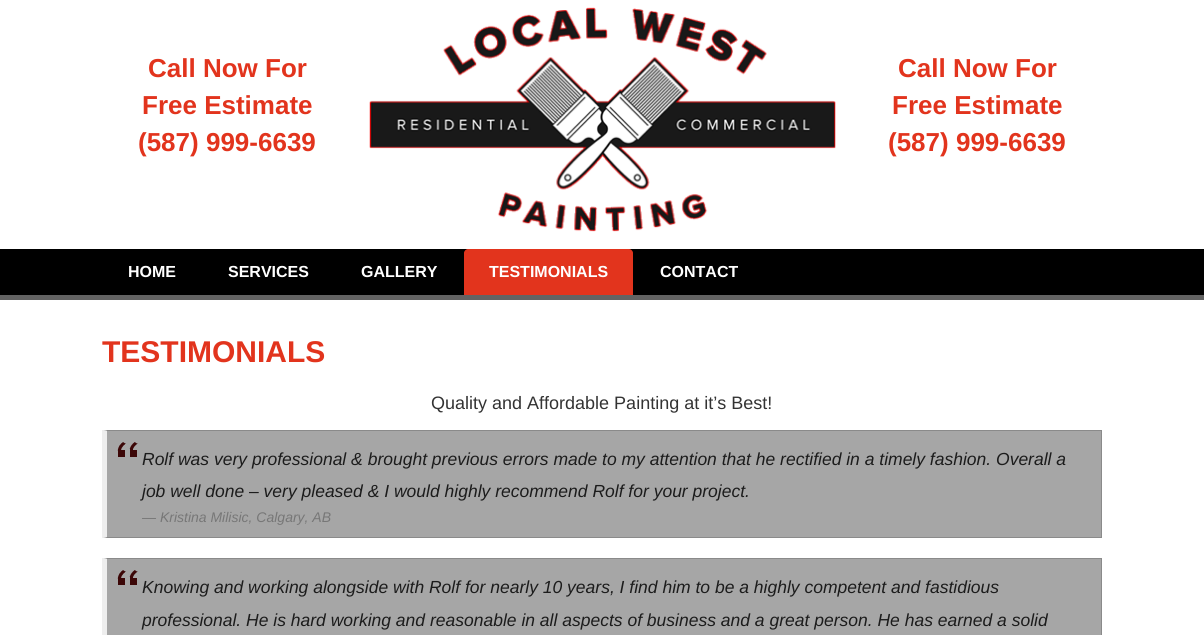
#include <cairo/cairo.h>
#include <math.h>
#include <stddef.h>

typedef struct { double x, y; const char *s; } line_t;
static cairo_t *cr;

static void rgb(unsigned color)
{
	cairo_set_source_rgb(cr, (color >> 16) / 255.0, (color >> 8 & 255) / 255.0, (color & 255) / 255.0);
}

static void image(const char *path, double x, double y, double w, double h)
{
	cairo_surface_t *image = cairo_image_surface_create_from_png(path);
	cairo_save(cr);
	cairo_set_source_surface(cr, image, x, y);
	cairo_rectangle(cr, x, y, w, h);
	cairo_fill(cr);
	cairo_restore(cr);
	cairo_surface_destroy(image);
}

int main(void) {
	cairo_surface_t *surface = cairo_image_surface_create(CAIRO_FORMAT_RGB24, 1204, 635);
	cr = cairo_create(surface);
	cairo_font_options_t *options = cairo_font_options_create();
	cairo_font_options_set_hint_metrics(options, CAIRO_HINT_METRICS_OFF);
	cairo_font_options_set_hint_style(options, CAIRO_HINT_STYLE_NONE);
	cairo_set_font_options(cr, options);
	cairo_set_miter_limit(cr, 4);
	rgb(0xffffff);
	cairo_paint(cr);
	image("img/1.png", 369, 7, 467, 225);
	rgb(0x000000);
	cairo_rectangle(cr, 0, 249, 1204, 46);
	cairo_fill(cr);
	rgb(0x636363);
	cairo_rectangle(cr, 0, 295, 1204, 5);
	cairo_fill(cr);
	rgb(0xe2341d);
	cairo_new_path(cr);
	cairo_move_to(cr, 468, 249);
	cairo_line_to(cr, 629, 249);
	cairo_curve_to(cr, 631, 249, 633, 251, 633, 253);
	cairo_line_to(cr, 633, 295);
	cairo_line_to(cr, 464, 295);
	cairo_line_to(cr, 464, 253);
	cairo_curve_to(cr, 464, 251, 466, 249, 468, 249);
	cairo_close_path(cr);
	cairo_fill(cr);
	rgb(0xa6a6a6);
	cairo_rectangle(cr, 107, 431, 994, 106);
	cairo_fill(cr);
	image("img/2.png", 117, 442, 21, 15);
	rgb(0x8a8a8a);
	cairo_new_path(cr);
	cairo_move_to(cr, 102, 430);
	cairo_line_to(cr, 1102, 430);
	cairo_line_to(cr, 1101, 431);
	cairo_line_to(cr, 107, 431);
	cairo_close_path(cr);
	cairo_fill(cr);
	cairo_rectangle(cr, 1101, 430, 1, 108);
	cairo_fill(cr);
	cairo_new_path(cr);
	cairo_move_to(cr, 1102, 538);
	cairo_line_to(cr, 102, 538);
	cairo_line_to(cr, 107, 537);
	cairo_line_to(cr, 1101, 537);
	cairo_close_path(cr);
	cairo_fill(cr);
	rgb(0xeeeeee);
	cairo_new_path(cr);
	cairo_move_to(cr, 102, 538);
	cairo_line_to(cr, 102, 430);
	cairo_line_to(cr, 107, 431);
	cairo_line_to(cr, 107, 537);
	cairo_close_path(cr);
	cairo_fill(cr);
	rgb(0xa6a6a6);
	cairo_rectangle(cr, 107, 559, 994, 76);
	cairo_fill(cr);
	image("img/2.png", 117, 570, 21, 15);
	rgb(0x8a8a8a);
	cairo_new_path(cr);
	cairo_move_to(cr, 102, 558);
	cairo_line_to(cr, 1102, 558);
	cairo_line_to(cr, 1101, 559);
	cairo_line_to(cr, 107, 559);
	cairo_close_path(cr);
	cairo_fill(cr);
	cairo_rectangle(cr, 1101, 558, 1, 77);
	cairo_fill(cr);
	rgb(0xeeeeee);
	cairo_new_path(cr);
	cairo_move_to(cr, 102, 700);
	cairo_line_to(cr, 102, 558);
	cairo_line_to(cr, 107, 559);
	cairo_line_to(cr, 107, 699);
	cairo_close_path(cr);
	cairo_fill(cr);
	cairo_select_font_face(cr, "Liberation Sans", CAIRO_FONT_SLANT_NORMAL, CAIRO_FONT_WEIGHT_BOLD);
	cairo_set_font_size(cr, 26);
	rgb(0xe2341d);
	{
		static const line_t items[] = {
			{148, 77, "Call Now For"},
			{142, 114, "Free Estimate"},
			{138, 151, "(587) 999-6639"},
			{898, 77, "Call Now For"},
			{892, 114, "Free Estimate"},
			{888, 151, "(587) 999-6639"},
		};
		for (size_t i = 0; i < sizeof items / sizeof *items; i++) {
			cairo_move_to(cr, items[i].x, items[i].y);
			cairo_show_text(cr, items[i].s);
		}
	}
	cairo_set_font_size(cr, 16);
	rgb(0xffffff);
	{
		static const line_t items[] = {
			{128, 277, "HOME"},
			{228, 277, "SERVICES"},
			{361, 277, "GALLERY"},
			{489, 277, "TESTIMONIALS"},
			{660, 277, "CONTACT"},
		};
		for (size_t i = 0; i < sizeof items / sizeof *items; i++) {
			cairo_move_to(cr, items[i].x, items[i].y);
			cairo_show_text(cr, items[i].s);
		}
	}
	cairo_set_font_size(cr, 30);
	rgb(0xe2341d);
	cairo_move_to(cr, 102, 362);
	cairo_show_text(cr, "TESTIMONIALS");
	cairo_select_font_face(cr, "Liberation Sans", CAIRO_FONT_SLANT_NORMAL, CAIRO_FONT_WEIGHT_NORMAL);
	cairo_set_font_size(cr, 18);
	rgb(0x333333);
	cairo_move_to(cr, 431, 409);
	cairo_show_text(cr, "Quality and Affordable Painting at it’s Best!");
	cairo_select_font_face(cr, "Liberation Sans", CAIRO_FONT_SLANT_ITALIC, CAIRO_FONT_WEIGHT_NORMAL);
	cairo_set_font_size(cr, 17.5);
	rgb(0x1c1c1c);
	cairo_move_to(cr, 142, 465);
	cairo_show_text(cr, "Rolf was very professional & brought previous errors made to my attention that he rectified in a timely fashion. Overall a");
	cairo_move_to(cr, 142, 497);
	cairo_show_text(cr, "job well done – very pleased & I would highly recommend Rolf for your project.");
	cairo_set_font_size(cr, 14);
	rgb(0x777777);
	cairo_move_to(cr, 142, 522);
	cairo_show_text(cr, "— Kristina Milisic, Calgary, AB");
	cairo_set_font_size(cr, 17.5);
	rgb(0x1c1c1c);
	cairo_move_to(cr, 142, 593);
	cairo_show_text(cr, "Knowing and working alongside with Rolf for nearly 10 years, I find him to be a highly competent and fastidious");
	cairo_move_to(cr, 142, 626);
	cairo_show_text(cr, "professional. He is hard working and reasonable in all aspects of business and a great person. He has earned a solid");
	cairo_surface_write_to_png(surface, "page.png");
	cairo_font_options_destroy(options);
	cairo_destroy(cr);
	cairo_surface_destroy(surface);
	return 0;
}
